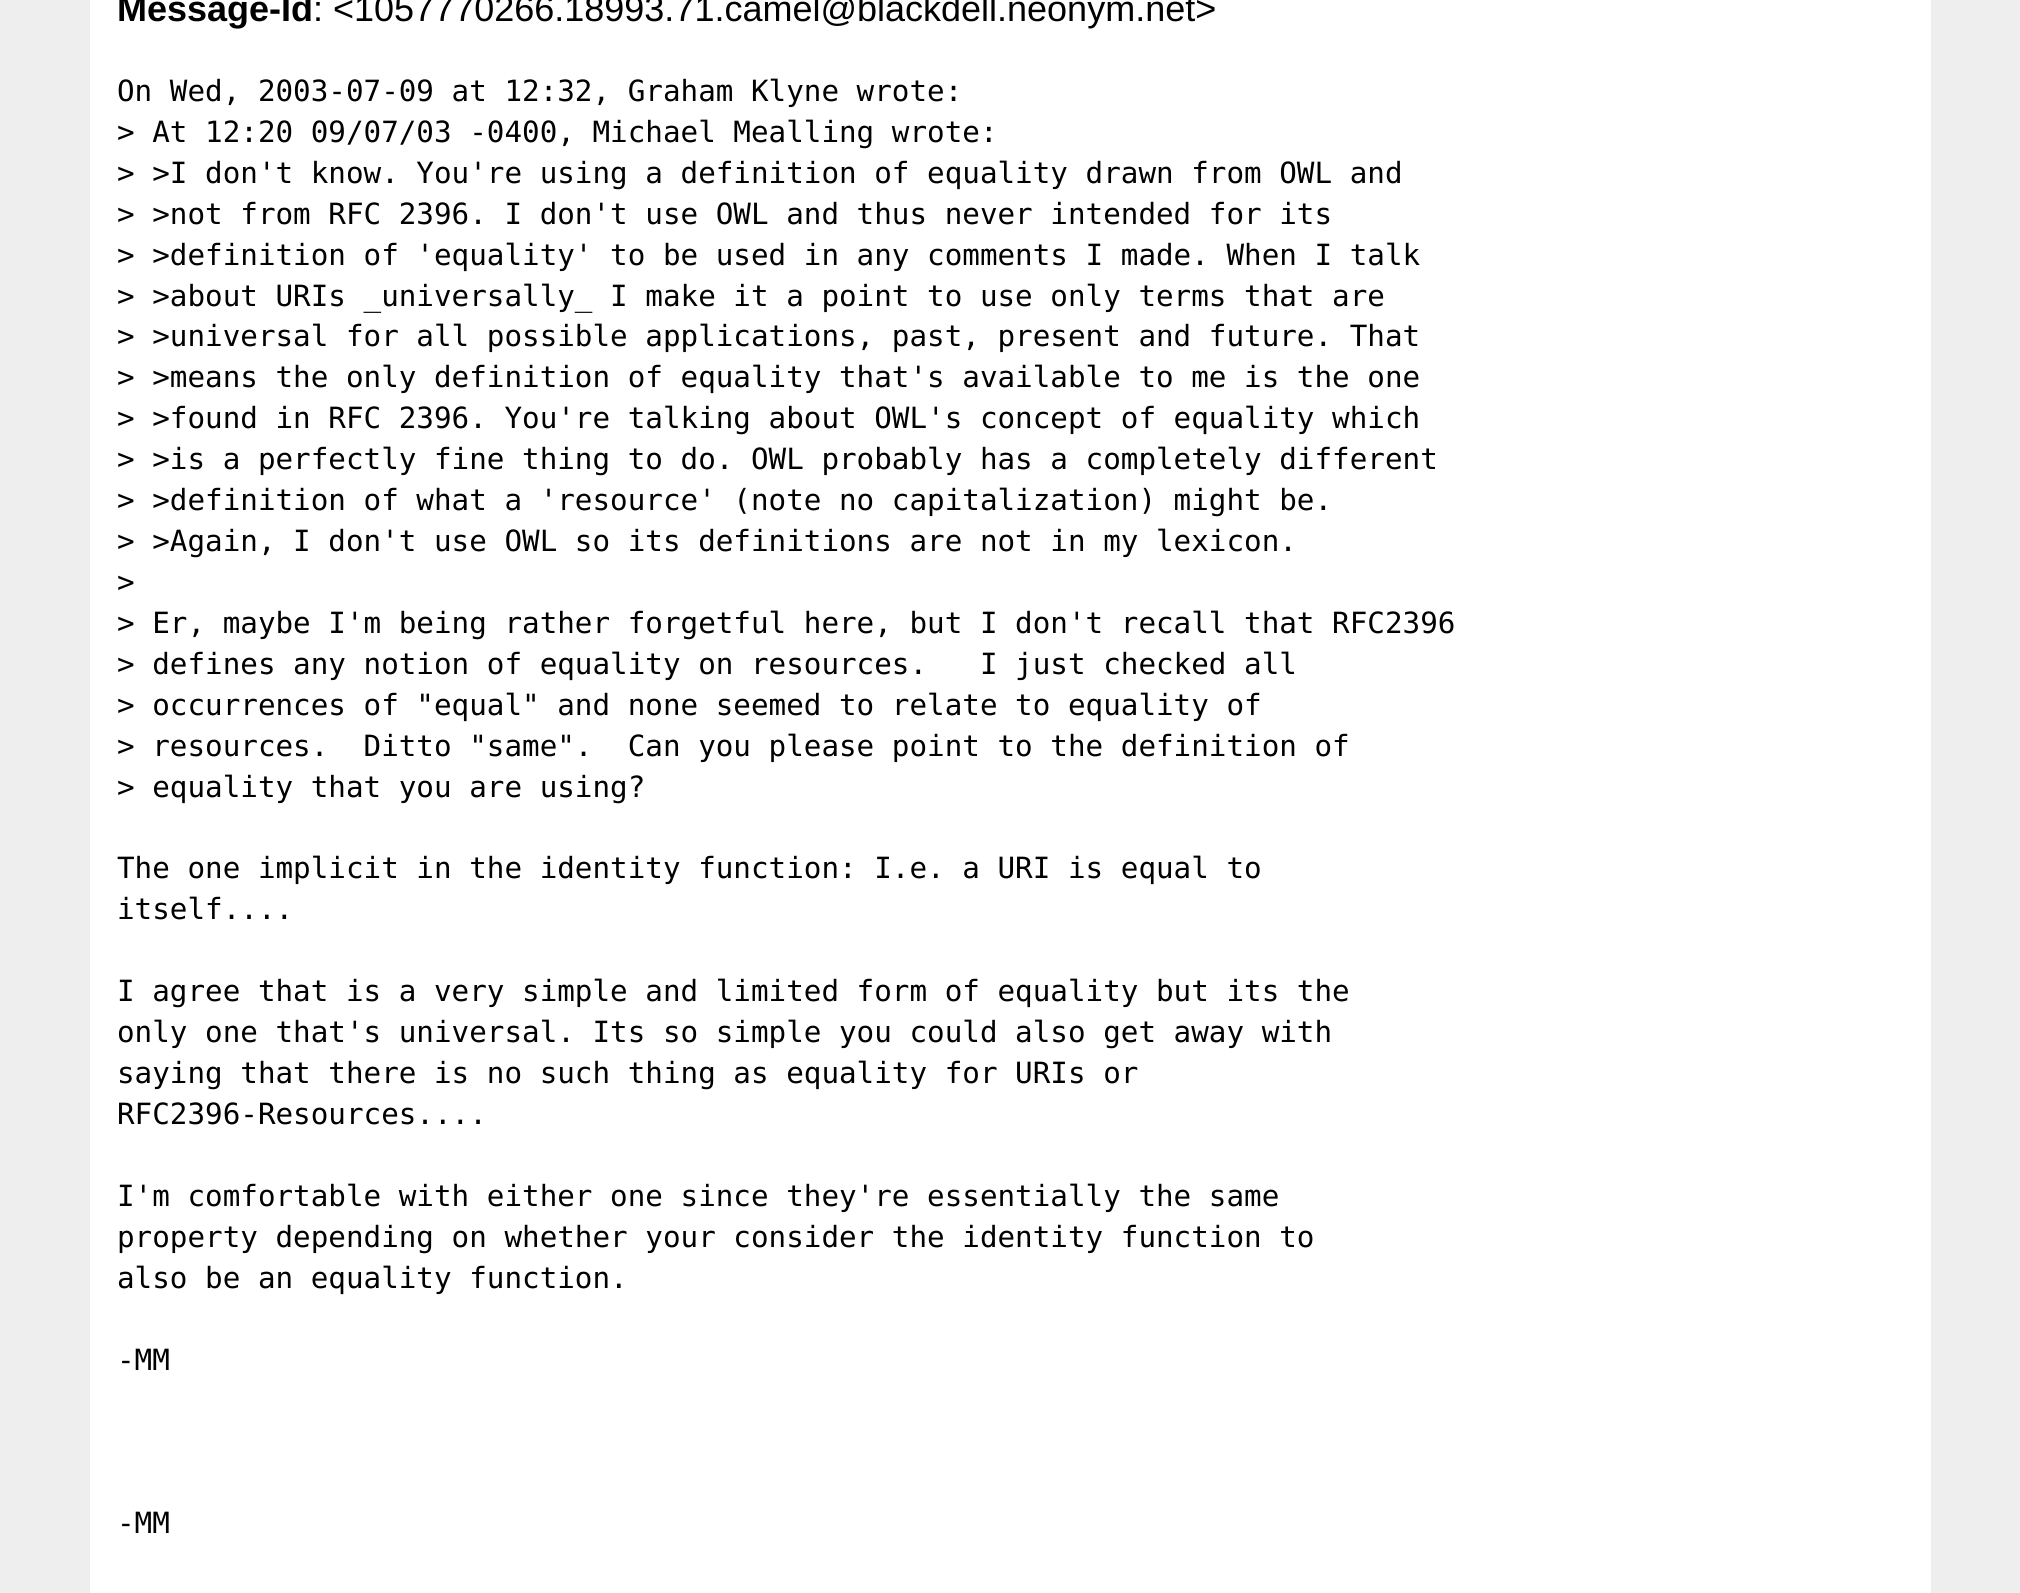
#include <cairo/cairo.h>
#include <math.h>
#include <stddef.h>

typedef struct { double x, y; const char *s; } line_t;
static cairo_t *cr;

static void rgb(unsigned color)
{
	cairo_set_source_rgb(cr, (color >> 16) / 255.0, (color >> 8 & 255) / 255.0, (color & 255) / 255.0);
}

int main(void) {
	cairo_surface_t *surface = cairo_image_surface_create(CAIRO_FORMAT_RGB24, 2020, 1593);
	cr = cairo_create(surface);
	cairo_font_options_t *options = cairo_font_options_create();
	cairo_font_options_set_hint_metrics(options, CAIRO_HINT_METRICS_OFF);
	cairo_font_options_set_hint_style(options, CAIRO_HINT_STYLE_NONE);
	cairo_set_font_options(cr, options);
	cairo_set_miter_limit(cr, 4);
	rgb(0xeeeeee);
	cairo_paint(cr);
	rgb(0xffffff);
	cairo_rectangle(cr, 90, 0, 1841, 1593);
	cairo_fill(cr);
	cairo_select_font_face(cr, "Liberation Sans", CAIRO_FONT_SLANT_NORMAL, CAIRO_FONT_WEIGHT_BOLD);
	cairo_set_font_size(cr, 36);
	rgb(0x000000);
	cairo_move_to(cr, 117, 21);
	cairo_show_text(cr, "Message-Id");
	cairo_select_font_face(cr, "Liberation Sans", CAIRO_FONT_SLANT_NORMAL, CAIRO_FONT_WEIGHT_NORMAL);
	cairo_move_to(cr, 313, 21);
	cairo_show_text(cr, ": <1057770266.18993.71.camel@blackdell.neonym.net>");
	cairo_select_font_face(cr, "DejaVu Sans Mono", CAIRO_FONT_SLANT_NORMAL, CAIRO_FONT_WEIGHT_NORMAL);
	cairo_set_font_size(cr, 29.25);
	{
		static const line_t items[] = {
			{117, 101, "On Wed, 2003-07-09 at 12:32, Graham Klyne wrote:"},
			{117, 142, "> At 12:20 09/07/03 -0400, Michael Mealling wrote:"},
			{117, 183, "> >I don't know. You're using a definition of equality drawn from OWL and"},
			{117, 224, "> >not from RFC 2396. I don't use OWL and thus never intended for its"},
			{117, 265, "> >definition of 'equality' to be used in any comments I made. When I talk"},
			{117, 306, "> >about URIs _universally_ I make it a point to use only terms that are"},
			{117, 346, "> >universal for all possible applications, past, present and future. That"},
			{117, 387, "> >means the only definition of equality that's available to me is the one"},
			{117, 428, "> >found in RFC 2396. You're talking about OWL's concept of equality which"},
			{117, 469, "> >is a perfectly fine thing to do. OWL probably has a completely different"},
			{117, 510, "> >definition of what a 'resource' (note no capitalization) might be."},
			{117, 551, "> >Again, I don't use OWL so its definitions are not in my lexicon."},
			{117, 592, ">"},
			{117, 633, "> Er, maybe I'm being rather forgetful here, but I don't recall that RFC2396"},
			{117, 674, "> defines any notion of equality on resources.   I just checked all"},
			{117, 715, "> occurrences of \"equal\" and none seemed to relate to equality of"},
			{117, 756, "> resources.  Ditto \"same\".  Can you please point to the definition of"},
			{117, 797, "> equality that you are using?"},
			{117, 878, "The one implicit in the identity function: I.e. a URI is equal to"},
			{117, 919, "itself...."},
			{117, 1001, "I agree that is a very simple and limited form of equality but its the"},
			{117, 1042, "only one that's universal. Its so simple you could also get away with"},
			{117, 1083, "saying that there is no such thing as equality for URIs or"},
			{117, 1124, "RFC2396-Resources...."},
			{117, 1206, "I'm comfortable with either one since they're essentially the same"},
			{117, 1247, "property depending on whether your consider the identity function to"},
			{117, 1288, "also be an equality function."},
			{117, 1370, "-MM"},
			{117, 1533, "-MM"},
		};
		for (size_t i = 0; i < sizeof items / sizeof *items; i++) {
			cairo_move_to(cr, items[i].x, items[i].y);
			cairo_show_text(cr, items[i].s);
		}
	}
	cairo_surface_write_to_png(surface, "page.png");
	cairo_font_options_destroy(options);
	cairo_destroy(cr);
	cairo_surface_destroy(surface);
	return 0;
}
